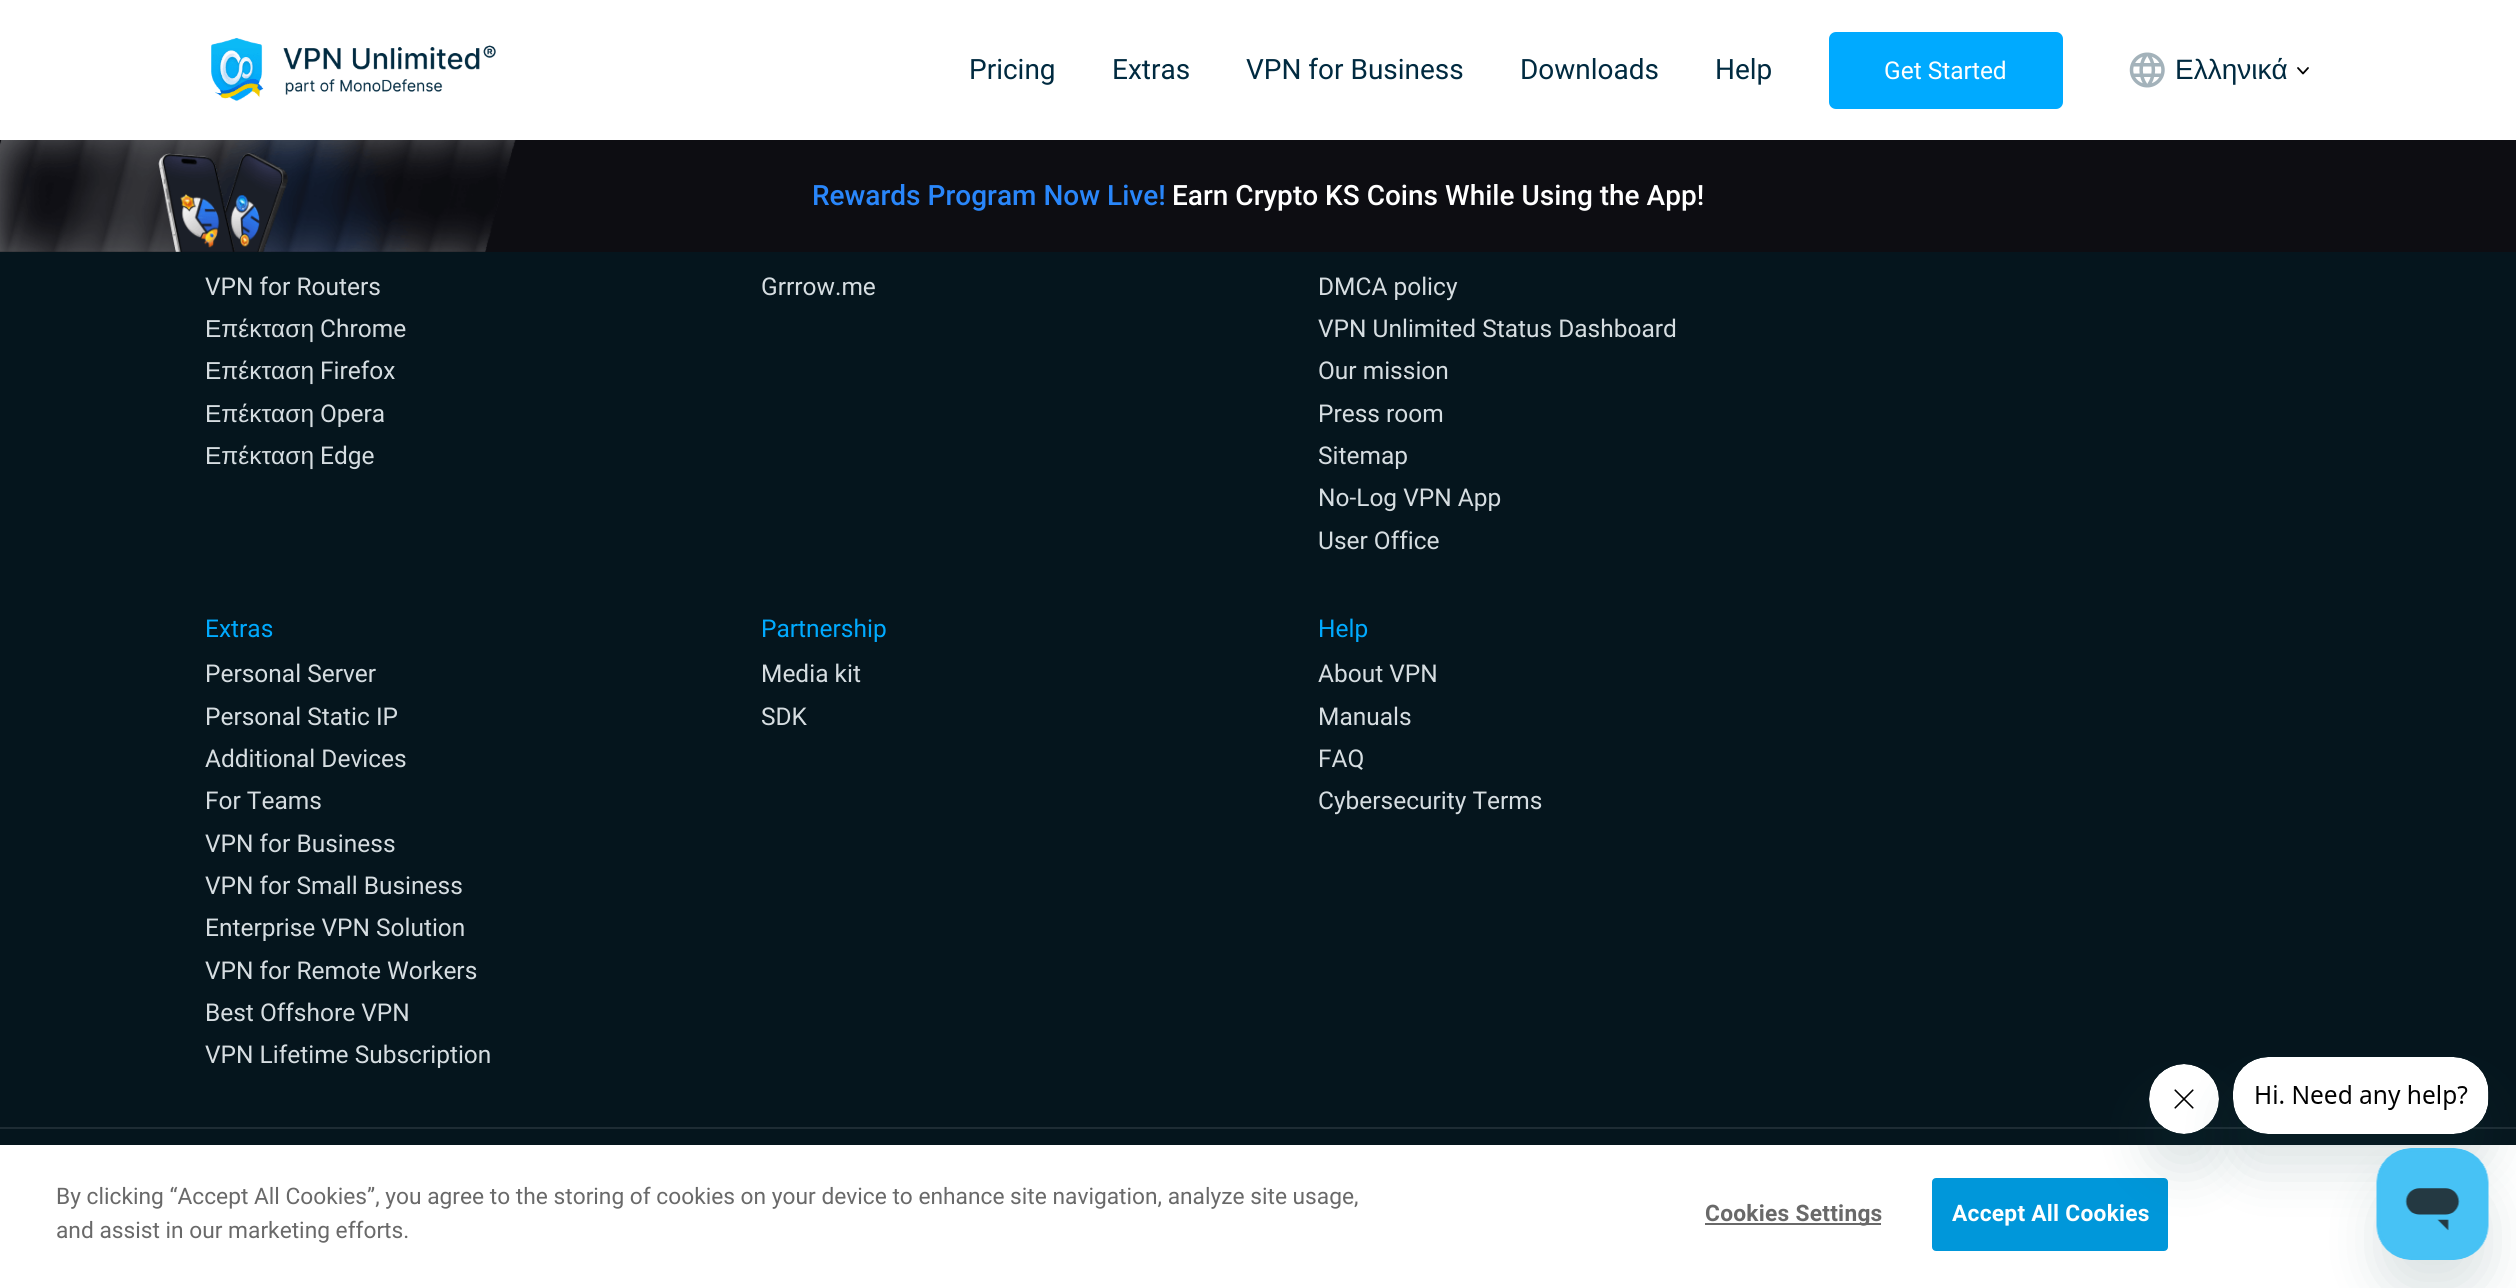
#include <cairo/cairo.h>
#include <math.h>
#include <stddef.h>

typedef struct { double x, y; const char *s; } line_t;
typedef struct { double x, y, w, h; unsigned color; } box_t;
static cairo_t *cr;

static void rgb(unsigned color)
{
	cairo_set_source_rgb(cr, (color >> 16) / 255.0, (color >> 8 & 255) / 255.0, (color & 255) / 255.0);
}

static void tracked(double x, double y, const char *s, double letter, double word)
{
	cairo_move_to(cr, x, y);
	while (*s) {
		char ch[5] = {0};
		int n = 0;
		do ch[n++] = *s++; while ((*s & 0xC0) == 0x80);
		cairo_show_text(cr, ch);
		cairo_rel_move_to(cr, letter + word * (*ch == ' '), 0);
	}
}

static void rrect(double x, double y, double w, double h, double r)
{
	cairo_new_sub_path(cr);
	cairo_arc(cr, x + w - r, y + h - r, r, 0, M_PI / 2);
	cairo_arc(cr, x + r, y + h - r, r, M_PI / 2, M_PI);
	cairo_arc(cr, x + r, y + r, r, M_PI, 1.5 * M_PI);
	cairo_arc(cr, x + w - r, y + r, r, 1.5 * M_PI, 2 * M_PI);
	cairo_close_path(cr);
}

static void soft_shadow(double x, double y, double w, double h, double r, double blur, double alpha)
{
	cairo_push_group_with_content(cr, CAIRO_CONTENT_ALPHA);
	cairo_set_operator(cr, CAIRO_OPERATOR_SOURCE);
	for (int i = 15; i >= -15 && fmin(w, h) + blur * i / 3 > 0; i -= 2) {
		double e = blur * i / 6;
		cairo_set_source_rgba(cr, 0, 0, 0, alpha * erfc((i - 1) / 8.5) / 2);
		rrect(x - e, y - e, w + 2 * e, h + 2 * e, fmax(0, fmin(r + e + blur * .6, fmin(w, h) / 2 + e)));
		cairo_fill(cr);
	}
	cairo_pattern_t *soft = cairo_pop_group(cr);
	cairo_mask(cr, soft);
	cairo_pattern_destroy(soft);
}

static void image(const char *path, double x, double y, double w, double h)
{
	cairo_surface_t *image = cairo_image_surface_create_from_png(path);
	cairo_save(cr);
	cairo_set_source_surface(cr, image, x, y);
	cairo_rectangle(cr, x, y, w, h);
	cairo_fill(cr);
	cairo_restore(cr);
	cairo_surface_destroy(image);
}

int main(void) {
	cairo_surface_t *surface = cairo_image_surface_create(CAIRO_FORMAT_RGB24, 2516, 1288);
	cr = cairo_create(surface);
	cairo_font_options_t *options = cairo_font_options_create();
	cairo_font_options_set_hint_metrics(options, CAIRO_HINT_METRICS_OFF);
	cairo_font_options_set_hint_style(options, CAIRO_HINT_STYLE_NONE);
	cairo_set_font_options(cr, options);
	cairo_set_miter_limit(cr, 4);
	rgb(0x05151d);
	cairo_paint(cr);
	rgb(0xffffff);
	cairo_rectangle(cr, 0, 0, 2516, 140);
	cairo_fill(cr);
	image("img/1.png", 211, 38, 285, 63);
	rgb(0x00aaff);
	rrect(1830, 33, 232, 75, 6);
	cairo_fill_preserve(cr);
	cairo_stroke(cr);
	image("img/2.png", 2129, 52, 36, 36);
	cairo_new_path(cr);
	cairo_move_to(cr, 2298, 68);
	cairo_line_to(cr, 2303, 73.5);
	cairo_line_to(cr, 2308, 68);
	rgb(0x000000);
	cairo_set_line_width(cr, 1.8);
	cairo_set_line_cap(cr, CAIRO_LINE_CAP_ROUND);
	cairo_set_line_join(cr, CAIRO_LINE_JOIN_ROUND);
	cairo_stroke(cr);
	rgb(0x0d0d12);
	cairo_rectangle(cr, 0, 140, 2516, 112);
	cairo_fill(cr);
	image("img/3.png", 0, 140, 516, 112);
	{
		static const box_t items[] = {
			{0, 1127, 2516, 2, 0x1e2c34},
			{0, 1145, 2516, 143, 0xffffff},
			{1705, 1223, 176, 2, 0x696969},
		};
		for (size_t i = 0; i < sizeof items / sizeof *items; i++) {
			rgb(items[i].color);
			cairo_rectangle(cr, items[i].x, items[i].y, items[i].w, items[i].h);
			cairo_fill(cr);
		}
	}
	rgb(0x0097da);
	rrect(1933, 1179, 234, 71, 3);
	cairo_fill_preserve(cr);
	cairo_set_line_width(cr, 2);
	cairo_set_line_cap(cr, CAIRO_LINE_CAP_BUTT);
	cairo_set_line_join(cr, CAIRO_LINE_JOIN_MITER);
	cairo_stroke(cr);
	rgb(0x17494d);
	soft_shadow(2149, 1099, 70, 70, 35, 26, 0.15);
	image("img/5.png", 2149, 1064, 70, 70);
	soft_shadow(2233, 1092, 256, 77, 35, 26, 0.15);
	image("img/4.png", 2233, 1057, 256, 77);
	soft_shadow(2377, 1183, 112, 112, 35, 26, 0.15);
	image("img/6.png", 2376, 1148, 113, 112);
	cairo_select_font_face(cr, "Roboto", CAIRO_FONT_SLANT_NORMAL, CAIRO_FONT_WEIGHT_NORMAL);
	cairo_set_font_size(cr, 28);
	rgb(0x002a40);
	{
		static const line_t items[] = {
			{969, 79, "Pricing"},
			{1112, 79, "Extras"},
			{1246, 79, "VPN for Business"},
			{1520, 79, "Downloads"},
			{1715, 79, "Help"},
		};
		for (size_t i = 0; i < sizeof items / sizeof *items; i++) {
			cairo_move_to(cr, items[i].x, items[i].y);
			cairo_show_text(cr, items[i].s);
		}
	}
	cairo_set_font_size(cr, 24.5);
	rgb(0xffffff);
	cairo_move_to(cr, 1884, 79);
	cairo_show_text(cr, "Get Started");
	cairo_select_font_face(cr, "Liberation Sans", CAIRO_FONT_SLANT_NORMAL, CAIRO_FONT_WEIGHT_NORMAL);
	cairo_set_font_size(cr, 28);
	rgb(0x002a40);
	cairo_move_to(cr, 2175, 79);
	cairo_show_text(cr, "Ελληνικά");
	cairo_select_font_face(cr, "Roboto Medium", CAIRO_FONT_SLANT_NORMAL, CAIRO_FONT_WEIGHT_NORMAL);
	rgb(0x2986fa);
	cairo_move_to(cr, 812, 205);
	cairo_show_text(cr, "Rewards Program Now Live!");
	rgb(0xffffff);
	cairo_move_to(cr, 1172, 205);
	cairo_show_text(cr, "Earn Crypto KS Coins While Using the App!");
	cairo_select_font_face(cr, "Roboto", CAIRO_FONT_SLANT_NORMAL, CAIRO_FONT_WEIGHT_NORMAL);
	cairo_set_font_size(cr, 24.5);
	rgb(0xd6dde1);
	cairo_move_to(cr, 205, 295);
	cairo_show_text(cr, "VPN for Routers");
	cairo_select_font_face(cr, "Liberation Sans", CAIRO_FONT_SLANT_NORMAL, CAIRO_FONT_WEIGHT_NORMAL);
	cairo_move_to(cr, 205, 337);
	cairo_show_text(cr, "Επέκταση");
	cairo_select_font_face(cr, "Roboto", CAIRO_FONT_SLANT_NORMAL, CAIRO_FONT_WEIGHT_NORMAL);
	cairo_move_to(cr, 320, 337);
	cairo_show_text(cr, "Chrome");
	cairo_select_font_face(cr, "Liberation Sans", CAIRO_FONT_SLANT_NORMAL, CAIRO_FONT_WEIGHT_NORMAL);
	cairo_move_to(cr, 205, 379);
	cairo_show_text(cr, "Επέκταση");
	cairo_select_font_face(cr, "Roboto", CAIRO_FONT_SLANT_NORMAL, CAIRO_FONT_WEIGHT_NORMAL);
	cairo_move_to(cr, 320, 379);
	cairo_show_text(cr, "Firefox");
	cairo_select_font_face(cr, "Liberation Sans", CAIRO_FONT_SLANT_NORMAL, CAIRO_FONT_WEIGHT_NORMAL);
	cairo_move_to(cr, 205, 422);
	cairo_show_text(cr, "Επέκταση");
	cairo_select_font_face(cr, "Roboto", CAIRO_FONT_SLANT_NORMAL, CAIRO_FONT_WEIGHT_NORMAL);
	cairo_move_to(cr, 320, 422);
	cairo_show_text(cr, "Opera");
	cairo_select_font_face(cr, "Liberation Sans", CAIRO_FONT_SLANT_NORMAL, CAIRO_FONT_WEIGHT_NORMAL);
	cairo_move_to(cr, 205, 464);
	cairo_show_text(cr, "Επέκταση");
	cairo_select_font_face(cr, "Roboto", CAIRO_FONT_SLANT_NORMAL, CAIRO_FONT_WEIGHT_NORMAL);
	{
		static const line_t items[] = {
			{320, 464, "Edge"},
			{761, 295, "Grrrow.me"},
			{1318, 295, "DMCA policy"},
			{1318, 337, "VPN Unlimited Status Dashboard"},
			{1318, 379, "Our mission"},
			{1318, 422, "Press room"},
			{1318, 464, "Sitemap"},
			{1318, 506, "No-Log VPN App"},
			{1318, 549, "User Office"},
		};
		for (size_t i = 0; i < sizeof items / sizeof *items; i++) {
			cairo_move_to(cr, items[i].x, items[i].y);
			cairo_show_text(cr, items[i].s);
		}
	}
	rgb(0x00aaff);
	cairo_move_to(cr, 205, 637);
	cairo_show_text(cr, "Extras");
	rgb(0xd6dde1);
	{
		static const line_t items[] = {
			{205, 682, "Personal Server"},
			{205, 725, "Personal Static IP"},
			{205, 767, "Additional Devices"},
			{205, 809, "For Teams"},
			{205, 852, "VPN for Business"},
			{205, 894, "VPN for Small Business"},
			{205, 936, "Enterprise VPN Solution"},
			{205, 979, "VPN for Remote Workers"},
			{205, 1021, "Best Offshore VPN"},
			{205, 1063, "VPN Lifetime Subscription"},
		};
		for (size_t i = 0; i < sizeof items / sizeof *items; i++) {
			cairo_move_to(cr, items[i].x, items[i].y);
			cairo_show_text(cr, items[i].s);
		}
	}
	rgb(0x00aaff);
	cairo_move_to(cr, 761, 637);
	cairo_show_text(cr, "Partnership");
	rgb(0xd6dde1);
	cairo_move_to(cr, 761, 682);
	cairo_show_text(cr, "Media kit");
	cairo_move_to(cr, 761, 725);
	cairo_show_text(cr, "SDK");
	rgb(0x00aaff);
	cairo_move_to(cr, 1318, 637);
	cairo_show_text(cr, "Help");
	rgb(0xd6dde1);
	{
		static const line_t items[] = {
			{1318, 682, "About VPN"},
			{1318, 725, "Manuals"},
			{1318, 767, "FAQ"},
			{1318, 809, "Cybersecurity Terms"},
		};
		for (size_t i = 0; i < sizeof items / sizeof *items; i++) {
			cairo_move_to(cr, items[i].x, items[i].y);
			cairo_show_text(cr, items[i].s);
		}
	}
	cairo_set_font_size(cr, 22.75);
	rgb(0x696969);
	cairo_move_to(cr, 56, 1204);
	cairo_show_text(cr, "By clicking “Accept All Cookies”, you agree to the storing of cookies on your device to enhance site navigation, analyze site usage,");
	cairo_move_to(cr, 56, 1238);
	cairo_show_text(cr, "and assist in our marketing efforts.");
	cairo_select_font_face(cr, "Roboto", CAIRO_FONT_SLANT_NORMAL, CAIRO_FONT_WEIGHT_BOLD);
	tracked(1705, 1221, "Cookies Settings", 0.25, 0);
	rgb(0xffffff);
	tracked(1952, 1221, "Accept All Cookies", 0.25, 0);
	cairo_surface_write_to_png(surface, "page.png");
	cairo_font_options_destroy(options);
	cairo_destroy(cr);
	cairo_surface_destroy(surface);
	return 0;
}
